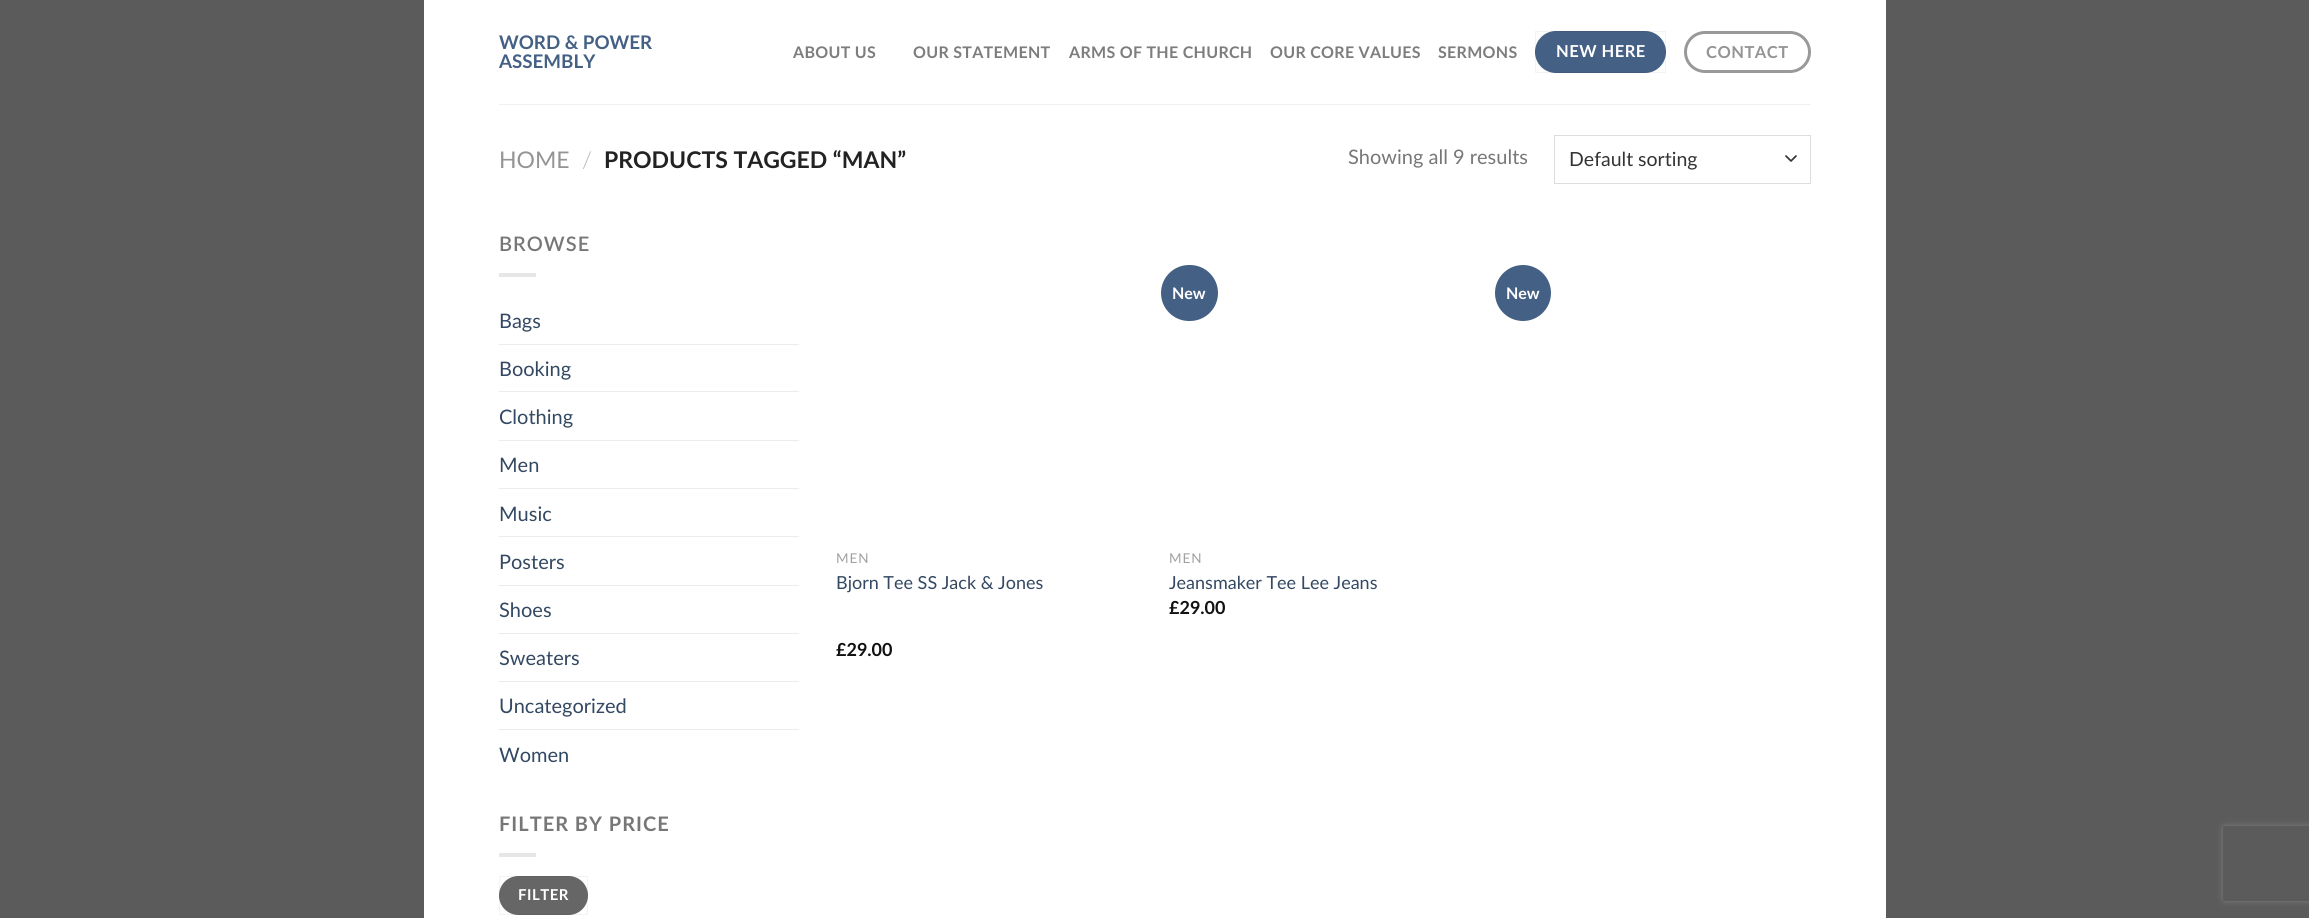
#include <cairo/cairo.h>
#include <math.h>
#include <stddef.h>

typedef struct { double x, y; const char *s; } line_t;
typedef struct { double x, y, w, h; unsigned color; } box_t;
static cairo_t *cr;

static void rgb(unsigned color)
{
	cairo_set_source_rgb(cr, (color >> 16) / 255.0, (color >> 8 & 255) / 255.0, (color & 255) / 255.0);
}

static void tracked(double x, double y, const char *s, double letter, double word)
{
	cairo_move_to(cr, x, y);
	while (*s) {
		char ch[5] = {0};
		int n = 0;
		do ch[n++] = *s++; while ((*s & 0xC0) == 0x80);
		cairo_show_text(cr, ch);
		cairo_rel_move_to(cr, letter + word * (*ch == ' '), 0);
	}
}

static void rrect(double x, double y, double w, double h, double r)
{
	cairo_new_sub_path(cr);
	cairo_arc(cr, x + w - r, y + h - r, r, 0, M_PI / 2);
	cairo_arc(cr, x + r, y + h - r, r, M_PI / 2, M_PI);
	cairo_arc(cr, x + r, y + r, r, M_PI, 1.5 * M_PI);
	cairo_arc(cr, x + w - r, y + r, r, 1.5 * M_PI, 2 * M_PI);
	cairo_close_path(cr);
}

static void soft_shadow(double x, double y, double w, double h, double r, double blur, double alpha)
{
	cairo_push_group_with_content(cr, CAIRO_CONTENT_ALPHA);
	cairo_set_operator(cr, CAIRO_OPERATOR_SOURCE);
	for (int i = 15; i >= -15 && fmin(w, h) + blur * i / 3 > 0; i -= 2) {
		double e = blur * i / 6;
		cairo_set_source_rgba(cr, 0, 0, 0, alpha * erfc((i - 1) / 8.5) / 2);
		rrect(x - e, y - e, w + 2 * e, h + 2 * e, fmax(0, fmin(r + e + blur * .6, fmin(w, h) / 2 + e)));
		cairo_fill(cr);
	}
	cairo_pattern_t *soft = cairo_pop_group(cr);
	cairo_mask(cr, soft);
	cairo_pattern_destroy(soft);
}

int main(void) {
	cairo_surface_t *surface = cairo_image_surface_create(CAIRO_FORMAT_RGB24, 2309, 918);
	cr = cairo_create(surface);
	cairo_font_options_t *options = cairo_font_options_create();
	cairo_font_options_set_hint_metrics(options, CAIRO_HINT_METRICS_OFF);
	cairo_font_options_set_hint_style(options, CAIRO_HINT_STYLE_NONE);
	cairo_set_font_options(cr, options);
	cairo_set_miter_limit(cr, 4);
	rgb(0x5b5b5b);
	cairo_paint(cr);
	rgb(0xffffff);
	cairo_rectangle(cr, 424, 0, 1462, 918);
	cairo_fill(cr);
	rgb(0x446084);
	rrect(1535, 31, 131, 42, 21);
	cairo_fill(cr);
	cairo_rectangle(cr, 1535.5, 31.5, 130, 41);
	cairo_set_source_rgba(cr, 0, 0, 0, 0.05);
	cairo_set_line_width(cr, 1);
	cairo_stroke(cr);
	rrect(1685.5, 32.5, 124, 39, 19.5);
	rgb(0x999999);
	cairo_set_line_width(cr, 3);
	cairo_stroke(cr);
	rgb(0xf1f1f1);
	cairo_rectangle(cr, 499, 104, 1312, 1);
	cairo_fill(cr);
	cairo_new_path(cr);
	cairo_move_to(cr, 1786, 156);
	cairo_line_to(cr, 1791, 161);
	cairo_line_to(cr, 1796, 156);
	rgb(0x333333);
	cairo_set_line_width(cr, 1.7);
	cairo_set_line_cap(cr, CAIRO_LINE_CAP_ROUND);
	cairo_set_line_join(cr, CAIRO_LINE_JOIN_ROUND);
	cairo_stroke(cr);
	cairo_rectangle(cr, 1554.5, 135.5, 256, 48);
	rgb(0xdddddd);
	cairo_set_line_width(cr, 1);
	cairo_set_line_cap(cr, CAIRO_LINE_CAP_BUTT);
	cairo_set_line_join(cr, CAIRO_LINE_JOIN_MITER);
	cairo_stroke(cr);
	{
		static const box_t items[] = {
			{499, 273, 37, 4, 0xe6e6e6},
			{499, 344, 300, 1, 0xececec},
			{499, 391, 300, 1, 0xececec},
			{499, 440, 300, 1, 0xececec},
			{499, 488, 300, 1, 0xececec},
			{499, 536, 300, 1, 0xececec},
			{499, 585, 300, 1, 0xececec},
			{499, 633, 300, 1, 0xececec},
			{499, 681, 300, 1, 0xececec},
			{499, 729, 300, 1, 0xececec},
			{499, 853, 37, 4, 0xe6e6e6},
		};
		for (size_t i = 0; i < sizeof items / sizeof *items; i++) {
			rgb(items[i].color);
			cairo_rectangle(cr, items[i].x, items[i].y, items[i].w, items[i].h);
			cairo_fill(cr);
		}
	}
	rgb(0x666666);
	rrect(499, 876, 89, 39, 19.5);
	cairo_fill(cr);
	cairo_rectangle(cr, 499.5, 876.5, 88, 38);
	cairo_set_source_rgba(cr, 0, 0, 0, 0.05);
	cairo_stroke(cr);
	rgb(0x446084);
	rrect(1161, 265, 57, 56, 28);
	cairo_fill(cr);
	cairo_arc(cr, 1523, 293, 28, 0, 2 * M_PI);
	cairo_fill(cr);
	cairo_save(cr);
	cairo_set_fill_rule(cr, CAIRO_FILL_RULE_EVEN_ODD);
	cairo_new_path(cr);
	cairo_move_to(cr, 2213, 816);
	cairo_line_to(cr, 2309, 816);
	cairo_line_to(cr, 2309, 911);
	cairo_line_to(cr, 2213, 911);
	cairo_close_path(cr);
	cairo_move_to(cr, 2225.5, 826);
	cairo_line_to(cr, 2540.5, 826);
	cairo_curve_to(cr, 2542, 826, 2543, 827, 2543, 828.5);
	cairo_line_to(cr, 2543, 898.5);
	cairo_curve_to(cr, 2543, 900, 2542, 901, 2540.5, 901);
	cairo_line_to(cr, 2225.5, 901);
	cairo_curve_to(cr, 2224, 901, 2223, 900, 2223, 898.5);
	cairo_line_to(cr, 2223, 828.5);
	cairo_curve_to(cr, 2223, 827, 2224, 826, 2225.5, 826);
	cairo_close_path(cr);
	cairo_clip(cr);
	rgb(0x808080);
	soft_shadow(2223, 826, 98, 75, 2.5, 3, 1);
	cairo_restore(cr);
	cairo_select_font_face(cr, "Lato", CAIRO_FONT_SLANT_NORMAL, CAIRO_FONT_WEIGHT_BOLD);
	cairo_set_font_size(cr, 18.75);
	cairo_move_to(cr, 499, 49);
	cairo_show_text(cr, "WORD & POWER");
	cairo_move_to(cr, 499, 68);
	cairo_show_text(cr, "ASSEMBLY");
	cairo_set_font_size(cr, 16);
	rgb(0x7d7d7d);
	{
		static const line_t items[] = {
			{793, 58, "ABOUT US"},
			{913, 58, "OUR STATEMENT"},
			{1069, 58, "ARMS OF THE CHURCH"},
			{1270, 58, "OUR CORE VALUES"},
			{1438, 58, "SERMONS"},
		};
		for (size_t i = 0; i < sizeof items / sizeof *items; i++) {
			tracked(items[i].x, items[i].y, items[i].s, 0.3, 0);
		}
	}
	cairo_set_font_size(cr, 16.5);
	rgb(0xffffff);
	tracked(1556, 57, "NEW HERE", 0.5, 0);
	rgb(0x949494);
	tracked(1706, 58, "CONTACT", 0.5, 0);
	cairo_select_font_face(cr, "Lato", CAIRO_FONT_SLANT_NORMAL, CAIRO_FONT_WEIGHT_NORMAL);
	cairo_set_font_size(cr, 23);
	cairo_move_to(cr, 499, 168);
	cairo_show_text(cr, "HOME");
	cairo_select_font_face(cr, "Lato Light", CAIRO_FONT_SLANT_NORMAL, CAIRO_FONT_WEIGHT_NORMAL);
	rgb(0xb2b2b2);
	cairo_move_to(cr, 582, 168);
	cairo_show_text(cr, "/");
	cairo_select_font_face(cr, "Lato", CAIRO_FONT_SLANT_NORMAL, CAIRO_FONT_WEIGHT_BOLD);
	rgb(0x222222);
	cairo_move_to(cr, 604, 168);
	cairo_show_text(cr, "PRODUCTS TAGGED “MAN”");
	cairo_select_font_face(cr, "Lato", CAIRO_FONT_SLANT_NORMAL, CAIRO_FONT_WEIGHT_NORMAL);
	cairo_set_font_size(cr, 20);
	rgb(0x777777);
	cairo_move_to(cr, 1348, 164);
	cairo_show_text(cr, "Showing all 9 results");
	cairo_set_font_size(cr, 19.5);
	rgb(0x333333);
	cairo_move_to(cr, 1569, 166);
	cairo_show_text(cr, "Default sorting");
	cairo_select_font_face(cr, "Lato SemiBold", CAIRO_FONT_SLANT_NORMAL, CAIRO_FONT_WEIGHT_NORMAL);
	cairo_set_font_size(cr, 20);
	rgb(0x777777);
	tracked(499, 251, "BROWSE", 1, 0);
	cairo_select_font_face(cr, "Lato", CAIRO_FONT_SLANT_NORMAL, CAIRO_FONT_WEIGHT_NORMAL);
	rgb(0x334862);
	{
		static const line_t items[] = {
			{499, 328, "Bags"},
			{499, 376, "Booking"},
			{499, 424, "Clothing"},
			{499, 472, "Men"},
			{499, 521, "Music"},
			{499, 569, "Posters"},
			{499, 617, "Shoes"},
			{499, 665, "Sweaters"},
			{499, 713, "Uncategorized"},
			{499, 762, "Women"},
		};
		for (size_t i = 0; i < sizeof items / sizeof *items; i++) {
			cairo_move_to(cr, items[i].x, items[i].y);
			cairo_show_text(cr, items[i].s);
		}
	}
	cairo_select_font_face(cr, "Lato", CAIRO_FONT_SLANT_NORMAL, CAIRO_FONT_WEIGHT_BOLD);
	rgb(0x777777);
	tracked(499, 831, "FILTER BY PRICE", 1, 0);
	cairo_set_font_size(cr, 15);
	rgb(0xffffff);
	tracked(518, 900, "FILTER", 0.5, 0);
	cairo_set_font_size(cr, 16);
	cairo_move_to(cr, 1172, 299);
	cairo_show_text(cr, "New");
	cairo_select_font_face(cr, "Lato", CAIRO_FONT_SLANT_NORMAL, CAIRO_FONT_WEIGHT_NORMAL);
	cairo_set_font_size(cr, 13.5);
	rgb(0xa0a0a0);
	tracked(1169, 563, "MEN", 1, 0);
	cairo_set_font_size(cr, 18);
	rgb(0x334862);
	cairo_move_to(cr, 1169, 589);
	cairo_show_text(cr, "Jeansmaker Tee Lee Jeans");
	cairo_select_font_face(cr, "Lato", CAIRO_FONT_SLANT_NORMAL, CAIRO_FONT_WEIGHT_BOLD);
	rgb(0x111111);
	cairo_move_to(cr, 1169, 614);
	cairo_show_text(cr, "£29.00");
	cairo_set_font_size(cr, 16);
	rgb(0xffffff);
	cairo_move_to(cr, 1506, 299);
	cairo_show_text(cr, "New");
	cairo_select_font_face(cr, "Lato", CAIRO_FONT_SLANT_NORMAL, CAIRO_FONT_WEIGHT_NORMAL);
	cairo_set_font_size(cr, 13.5);
	rgb(0xa0a0a0);
	tracked(836, 563, "MEN", 1, 0);
	cairo_set_font_size(cr, 18);
	rgb(0x334862);
	cairo_move_to(cr, 836, 589);
	cairo_show_text(cr, "Bjorn Tee SS Jack & Jones");
	cairo_select_font_face(cr, "Lato", CAIRO_FONT_SLANT_NORMAL, CAIRO_FONT_WEIGHT_BOLD);
	rgb(0x111111);
	cairo_move_to(cr, 836, 656);
	cairo_show_text(cr, "£29.00");
	cairo_surface_write_to_png(surface, "page.png");
	cairo_font_options_destroy(options);
	cairo_destroy(cr);
	cairo_surface_destroy(surface);
	return 0;
}
